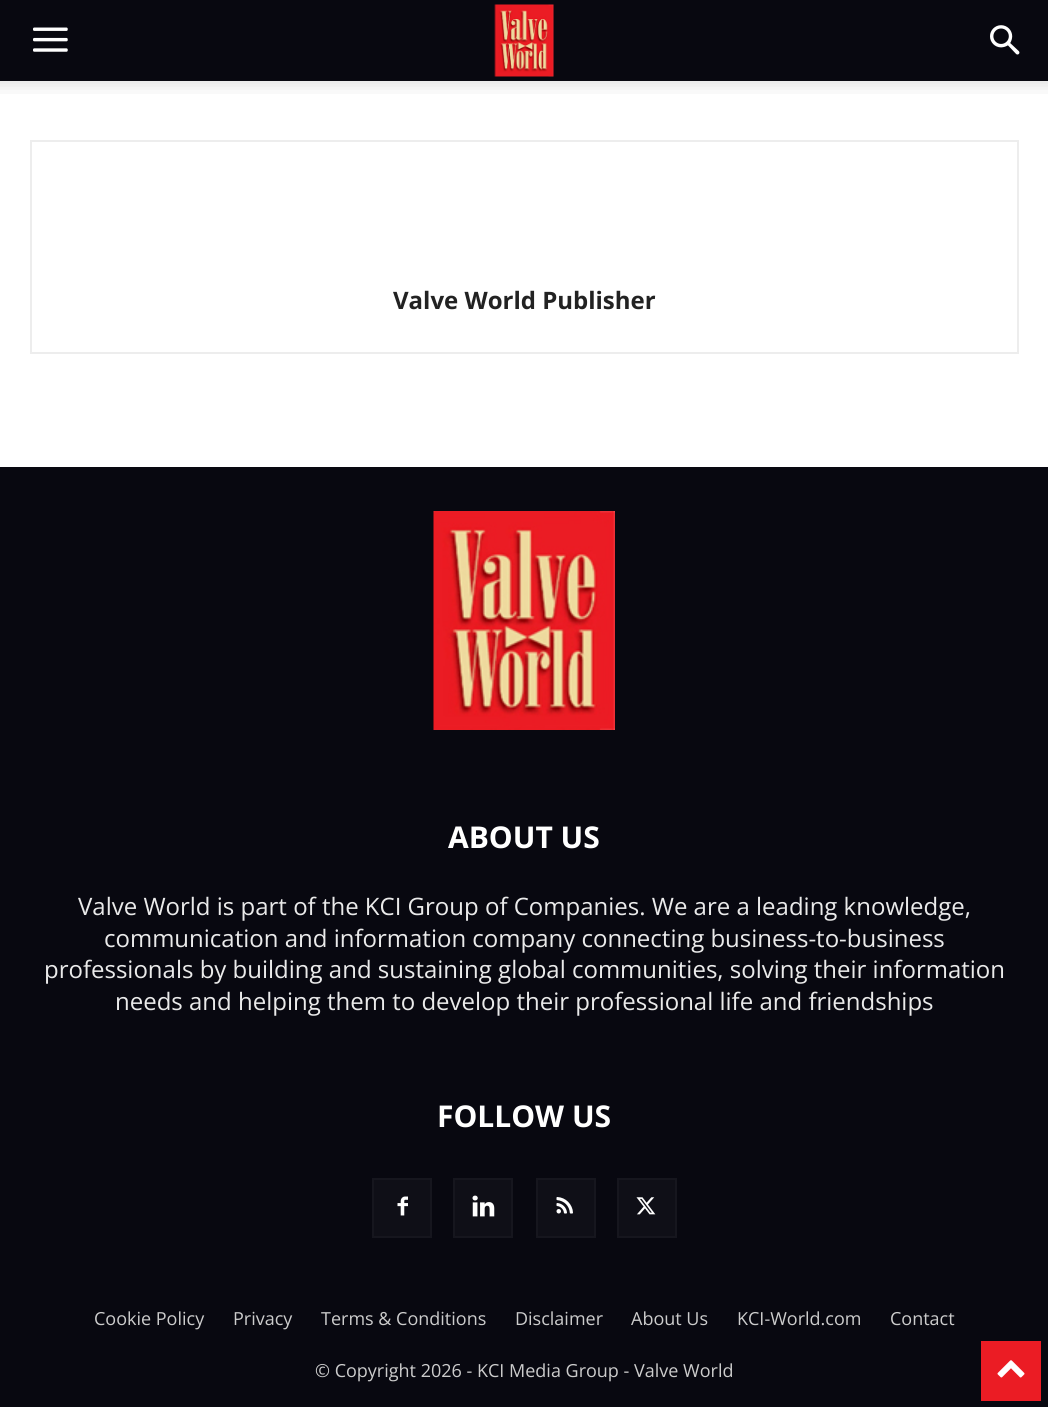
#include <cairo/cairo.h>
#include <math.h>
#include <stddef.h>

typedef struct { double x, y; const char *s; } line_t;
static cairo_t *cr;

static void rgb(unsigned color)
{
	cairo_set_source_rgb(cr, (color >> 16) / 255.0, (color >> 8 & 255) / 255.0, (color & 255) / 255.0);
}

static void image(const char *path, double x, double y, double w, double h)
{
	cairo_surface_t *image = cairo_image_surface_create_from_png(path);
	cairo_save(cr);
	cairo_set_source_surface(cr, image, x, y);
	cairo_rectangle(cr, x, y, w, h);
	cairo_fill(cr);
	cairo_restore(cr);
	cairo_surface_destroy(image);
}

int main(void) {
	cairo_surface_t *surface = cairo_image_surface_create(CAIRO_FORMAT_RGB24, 1048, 1407);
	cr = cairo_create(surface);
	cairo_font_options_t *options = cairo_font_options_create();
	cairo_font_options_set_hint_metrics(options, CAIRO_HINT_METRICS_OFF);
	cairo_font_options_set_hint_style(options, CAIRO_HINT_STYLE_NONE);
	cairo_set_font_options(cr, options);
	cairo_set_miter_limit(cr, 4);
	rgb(0xffffff);
	cairo_paint(cr);
	rgb(0x080810);
	cairo_rectangle(cr, 0, 0, 1048, 81);
	cairo_fill(cr);
	image("img/1.png", 33, 27, 35, 25);
	image("img/2.png", 494, 4, 60, 73);
	image("img/3.png", 990, 25, 30, 30);
	image("img/4.png", 0, 81, 1048, 13);
	cairo_rectangle(cr, 31, 141, 987, 212);
	rgb(0xededed);
	cairo_stroke(cr);
	rgb(0x080810);
	cairo_rectangle(cr, 0, 467, 1048, 940);
	cairo_fill(cr);
	image("img/5.png", 433, 511, 182, 219);
	rgb(0x0f0f17);
	cairo_rectangle(cr, 374, 1180, 56, 56);
	cairo_fill(cr);
	image("img/6.png", 397, 1196, 11, 20);
	cairo_rectangle(cr, 373, 1179, 58, 58);
	rgb(0x16161e);
	cairo_stroke(cr);
	rgb(0x0f0f17);
	cairo_rectangle(cr, 455, 1180, 56, 56);
	cairo_fill(cr);
	image("img/7.png", 472, 1195, 23, 22);
	cairo_rectangle(cr, 454, 1179, 58, 58);
	rgb(0x16161e);
	cairo_stroke(cr);
	rgb(0x0f0f17);
	cairo_rectangle(cr, 538, 1180, 56, 56);
	cairo_fill(cr);
	image("img/8.png", 556, 1197, 17, 17);
	cairo_rectangle(cr, 537, 1179, 58, 58);
	rgb(0x16161e);
	cairo_stroke(cr);
	rgb(0x0f0f17);
	cairo_rectangle(cr, 619, 1180, 56, 56);
	cairo_fill(cr);
	image("img/9.png", 636, 1197, 20, 18);
	cairo_rectangle(cr, 618, 1179, 58, 58);
	rgb(0x16161e);
	cairo_stroke(cr);
	rgb(0xeb1c24);
	cairo_rectangle(cr, 981, 1341, 60, 60);
	cairo_fill(cr);
	image("img/10.png", 997, 1360, 28, 18);
	cairo_select_font_face(cr, "Open Sans", CAIRO_FONT_SLANT_NORMAL, CAIRO_FONT_WEIGHT_BOLD);
	cairo_set_font_size(cr, 24);
	rgb(0x222222);
	cairo_move_to(cr, 393, 309);
	cairo_show_text(cr, "Valve World Publisher");
	cairo_set_font_size(cr, 30);
	rgb(0xffffff);
	cairo_move_to(cr, 448, 848);
	cairo_show_text(cr, "ABOUT US");
	cairo_select_font_face(cr, "Open Sans", CAIRO_FONT_SLANT_NORMAL, CAIRO_FONT_WEIGHT_NORMAL);
	cairo_set_font_size(cr, 24);
	rgb(0xeaeaea);
	{
		static const line_t items[] = {
			{78, 915, "Valve World is part of the KCI Group of Companies. We are a leading knowledge,"},
			{104, 947, "communication and information company connecting business-to-business"},
			{44, 978, "professionals by building and sustaining global communities, solving their information"},
			{115, 1010, "needs and helping them to develop their professional life and friendships"},
		};
		for (size_t i = 0; i < sizeof items / sizeof *items; i++) {
			cairo_move_to(cr, items[i].x, items[i].y);
			cairo_show_text(cr, items[i].s);
		}
	}
	cairo_select_font_face(cr, "Open Sans", CAIRO_FONT_SLANT_NORMAL, CAIRO_FONT_WEIGHT_BOLD);
	cairo_set_font_size(cr, 30);
	rgb(0xffffff);
	cairo_move_to(cr, 437, 1127);
	cairo_show_text(cr, "FOLLOW US");
	cairo_select_font_face(cr, "Open Sans", CAIRO_FONT_SLANT_NORMAL, CAIRO_FONT_WEIGHT_NORMAL);
	cairo_set_font_size(cr, 18);
	rgb(0xcccccc);
	{
		static const line_t items[] = {
			{94, 1325, "Cookie Policy"},
			{233, 1325, "Privacy"},
			{321, 1325, "Terms & Conditions"},
			{515, 1325, "Disclaimer"},
			{631, 1325, "About Us"},
			{737, 1325, "KCI-World.com"},
			{890, 1325, "Contact"},
			{315, 1377, "© Copyright 2026 - KCI Media Group - Valve World"},
		};
		for (size_t i = 0; i < sizeof items / sizeof *items; i++) {
			cairo_move_to(cr, items[i].x, items[i].y);
			cairo_show_text(cr, items[i].s);
		}
	}
	cairo_surface_write_to_png(surface, "page.png");
	cairo_font_options_destroy(options);
	cairo_destroy(cr);
	cairo_surface_destroy(surface);
	return 0;
}
